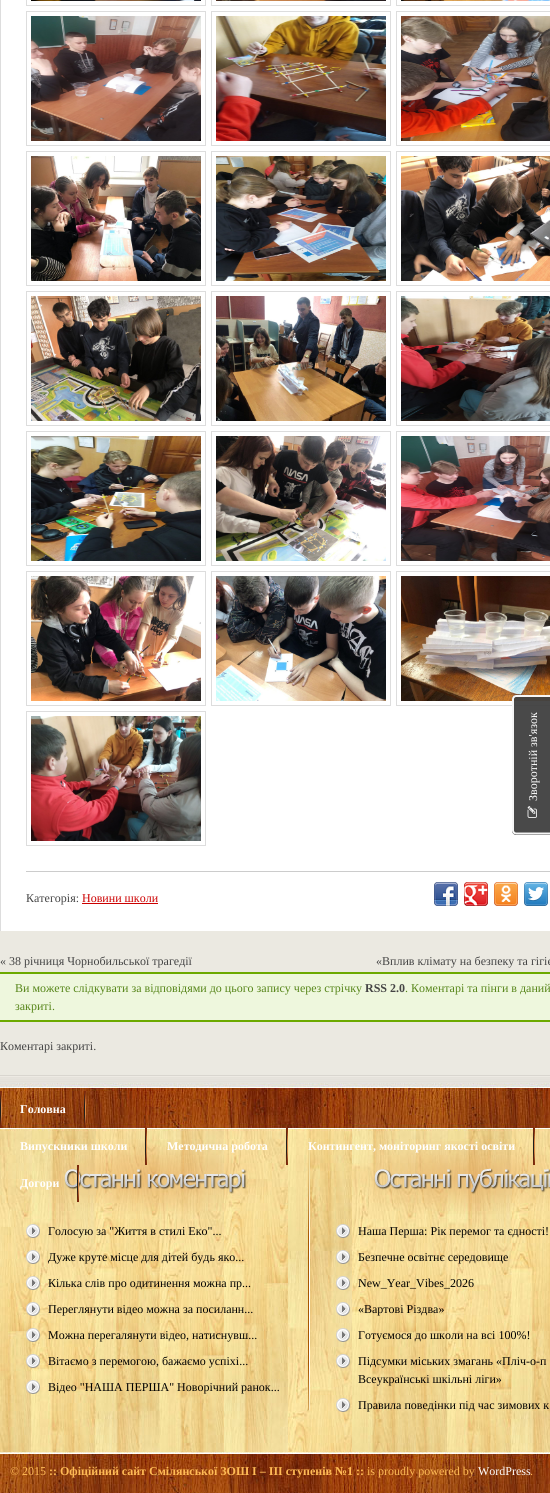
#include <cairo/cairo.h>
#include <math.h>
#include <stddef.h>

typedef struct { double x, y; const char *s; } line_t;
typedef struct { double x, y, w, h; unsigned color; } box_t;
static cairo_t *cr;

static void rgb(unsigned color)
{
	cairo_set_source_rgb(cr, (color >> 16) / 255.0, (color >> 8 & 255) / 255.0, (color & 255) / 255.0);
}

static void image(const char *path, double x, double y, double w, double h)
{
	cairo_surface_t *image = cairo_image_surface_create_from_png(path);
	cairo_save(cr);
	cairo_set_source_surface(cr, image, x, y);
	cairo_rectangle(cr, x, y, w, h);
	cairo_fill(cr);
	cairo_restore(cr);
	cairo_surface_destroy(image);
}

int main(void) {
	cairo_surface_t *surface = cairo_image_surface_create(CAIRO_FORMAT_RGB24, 550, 1493);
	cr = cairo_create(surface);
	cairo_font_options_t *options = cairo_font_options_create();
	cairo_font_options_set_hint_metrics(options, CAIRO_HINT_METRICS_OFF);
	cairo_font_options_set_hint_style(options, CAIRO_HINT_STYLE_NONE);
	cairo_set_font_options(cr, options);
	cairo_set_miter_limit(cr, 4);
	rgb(0xebe9e1);
	cairo_paint(cr);
	rgb(0xffffff);
	cairo_rectangle(cr, 1, 0, 549, 931);
	cairo_fill(cr);
	cairo_rectangle(cr, 396.5, 571.5, 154, 134);
	rgb(0xdddddd);
	cairo_set_line_width(cr, 1);
	cairo_stroke(cr);
	image("img/19.png", 401, 576, 149, 125);
	cairo_set_source_rgba(cr, 0.251, 0.251, 0.251, 0.95);
	cairo_new_path(cr);
	cairo_move_to(cr, 512, 831);
	cairo_line_to(cr, 512, 699);
	cairo_curve_to(cr, 512, 697, 514, 695, 516, 695);
	cairo_line_to(cr, 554, 695);
	cairo_curve_to(cr, 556, 695, 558, 697, 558, 699);
	cairo_line_to(cr, 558, 831);
	cairo_curve_to(cr, 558, 833, 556, 835, 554, 835);
	cairo_line_to(cr, 516, 835);
	cairo_curve_to(cr, 514, 835, 512, 833, 512, 831);
	cairo_close_path(cr);
	cairo_fill(cr);
	cairo_new_path(cr);
	cairo_move_to(cr, 513, 830.5);
	cairo_line_to(cr, 513, 699);
	cairo_curve_to(cr, 513, 697.5, 514.5, 696, 516, 696);
	cairo_line_to(cr, 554, 696);
	cairo_curve_to(cr, 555.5, 696, 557, 697.5, 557, 699);
	cairo_line_to(cr, 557, 830.5);
	cairo_curve_to(cr, 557, 832, 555.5, 833.5, 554, 833.5);
	cairo_line_to(cr, 516, 833.5);
	cairo_curve_to(cr, 514.5, 833.5, 513, 832, 513, 830.5);
	cairo_close_path(cr);
	cairo_set_source_rgba(cr, 1, 1, 1, 0.95);
	cairo_set_line_width(cr, 2);
	cairo_stroke(cr);
	image("img/1.png", 527, 806, 10, 12);
	rgb(0xdddddd);
	cairo_rectangle(cr, 0, 0, 1, 931);
	cairo_fill(cr);
	cairo_rectangle(cr, 26.5, -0.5, 179, 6);
	cairo_set_line_width(cr, 1);
	cairo_stroke(cr);
	image("img/2.png", 31, 0, 170, 1);
	cairo_rectangle(cr, 211.5, -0.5, 179, 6);
	cairo_stroke(cr);
	image("img/3.png", 216, 0, 170, 1);
	cairo_rectangle(cr, 396.5, -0.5, 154, 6);
	cairo_stroke(cr);
	image("img/4.png", 401, 0, 149, 1);
	cairo_rectangle(cr, 26.5, 11.5, 179, 134);
	cairo_stroke(cr);
	image("img/5.png", 31, 16, 170, 125);
	cairo_rectangle(cr, 211.5, 11.5, 179, 134);
	cairo_stroke(cr);
	image("img/6.png", 216, 16, 170, 125);
	cairo_rectangle(cr, 396.5, 11.5, 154, 134);
	cairo_stroke(cr);
	image("img/7.png", 401, 16, 149, 125);
	cairo_rectangle(cr, 26.5, 151.5, 179, 134);
	cairo_stroke(cr);
	image("img/8.png", 31, 156, 170, 125);
	cairo_rectangle(cr, 211.5, 151.5, 179, 134);
	cairo_stroke(cr);
	image("img/9.png", 216, 156, 170, 125);
	cairo_rectangle(cr, 396.5, 151.5, 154, 134);
	cairo_stroke(cr);
	image("img/10.png", 401, 156, 149, 125);
	cairo_rectangle(cr, 26.5, 291.5, 179, 134);
	cairo_stroke(cr);
	image("img/11.png", 31, 296, 170, 125);
	cairo_rectangle(cr, 211.5, 291.5, 179, 134);
	cairo_stroke(cr);
	image("img/12.png", 216, 296, 170, 125);
	cairo_rectangle(cr, 396.5, 291.5, 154, 134);
	cairo_stroke(cr);
	image("img/13.png", 401, 296, 149, 125);
	cairo_rectangle(cr, 26.5, 431.5, 179, 134);
	cairo_stroke(cr);
	image("img/14.png", 31, 436, 170, 125);
	cairo_rectangle(cr, 211.5, 431.5, 179, 134);
	cairo_stroke(cr);
	image("img/15.png", 216, 436, 170, 125);
	cairo_rectangle(cr, 396.5, 431.5, 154, 134);
	cairo_stroke(cr);
	image("img/16.png", 401, 436, 149, 125);
	cairo_rectangle(cr, 26.5, 571.5, 179, 134);
	cairo_stroke(cr);
	image("img/17.png", 31, 576, 170, 125);
	cairo_rectangle(cr, 211.5, 571.5, 179, 134);
	cairo_stroke(cr);
	image("img/18.png", 216, 576, 170, 125);
	cairo_rectangle(cr, 26.5, 711.5, 179, 134);
	cairo_stroke(cr);
	image("img/20.png", 31, 716, 170, 125);
	rgb(0xcccccc);
	cairo_rectangle(cr, 26, 871, 524, 1);
	cairo_fill(cr);
	rgb(0xcc0000);
	cairo_rectangle(cr, 82, 903, 76, 1);
	cairo_fill(cr);
	image("img/21.png", 434, 882, 24, 24);
	image("img/22.png", 464, 882, 24, 24);
	image("img/23.png", 494, 882, 24, 24);
	image("img/24.png", 524, 882, 24, 24);
	{
		static const box_t items[] = {
			{0, 974, 550, 46, 0xeef7dd},
			{0, 972, 550, 2, 0x6caa00},
			{0, 1020, 550, 2, 0x6caa00},
		};
		for (size_t i = 0; i < sizeof items / sizeof *items; i++) {
			rgb(items[i].color);
			cairo_rectangle(cr, items[i].x, items[i].y, items[i].w, items[i].h);
			cairo_fill(cr);
		}
	}
	image("img/25.png", 0, 1075, 550, 377);
	image("img/26.png", 0, 1091, 2, 37);
	image("img/26.png", 84, 1091, 2, 37);
	image("img/28.png", 42, 1140, 225, 74);
	image("img/26.png", 145, 1128, 2, 37);
	image("img/26.png", 286, 1128, 2, 37);
	image("img/36.png", 352, 1141, 198, 73);
	image("img/26.png", 533, 1128, 2, 37);
	image("img/26.png", 77, 1165, 2, 37);
	image("img/27.png", 308, 1138, 2, 272);
	image("img/29.png", 26, 1224, 14, 14);
	image("img/30.png", 26, 1250, 14, 14);
	image("img/31.png", 26, 1276, 14, 14);
	image("img/32.png", 26, 1302, 14, 14);
	image("img/33.png", 26, 1328, 14, 14);
	image("img/34.png", 26, 1354, 14, 14);
	image("img/35.png", 26, 1380, 14, 14);
	image("img/37.png", 336, 1224, 14, 14);
	image("img/38.png", 336, 1250, 14, 14);
	image("img/39.png", 336, 1276, 14, 14);
	image("img/40.png", 336, 1302, 14, 14);
	image("img/41.png", 336, 1328, 14, 14);
	image("img/42.png", 336, 1354, 14, 14);
	image("img/43.png", 336, 1398, 14, 14);
	image("img/44.png", 0, 1452, 550, 41);
	cairo_select_font_face(cr, "Liberation Serif", CAIRO_FONT_SLANT_NORMAL, CAIRO_FONT_WEIGHT_NORMAL);
	cairo_set_font_size(cr, 12);
	rgb(0xffffff);
	cairo_save(cr);
	cairo_translate(cr, 537, 801);
	cairo_rotate(cr, -90 * M_PI / 180);
	cairo_move_to(cr, 0, 0);
	cairo_show_text(cr, "Зворотній зв'язок");
	cairo_restore(cr);
	rgb(0x444444);
	cairo_move_to(cr, 26, 902);
	cairo_show_text(cr, "Категорія:");
	rgb(0xcc0000);
	cairo_move_to(cr, 82, 902);
	cairo_show_text(cr, "Новини школи");
	rgb(0x444444);
	cairo_move_to(cr, 0, 965);
	cairo_show_text(cr, "« 38 річниця Чорнобильської трагедії");
	cairo_move_to(cr, 376, 965);
	cairo_show_text(cr, "«Вплив клімату на безпеку та гігіє");
	rgb(0x57861a);
	cairo_move_to(cr, 15, 992);
	cairo_show_text(cr, "Ви можете слідкувати за відповідями до цього запису через стрічку");
	cairo_select_font_face(cr, "Liberation Serif", CAIRO_FONT_SLANT_NORMAL, CAIRO_FONT_WEIGHT_BOLD);
	rgb(0x444444);
	cairo_move_to(cr, 365, 992);
	cairo_show_text(cr, "RSS 2.0");
	cairo_select_font_face(cr, "Liberation Serif", CAIRO_FONT_SLANT_NORMAL, CAIRO_FONT_WEIGHT_NORMAL);
	rgb(0x57861a);
	cairo_move_to(cr, 405, 992);
	cairo_show_text(cr, ". Коментарі та пінги в даний");
	cairo_move_to(cr, 15, 1010);
	cairo_show_text(cr, "закриті.");
	rgb(0x444444);
	cairo_move_to(cr, 0, 1050);
	cairo_show_text(cr, "Коментарі закриті.");
	cairo_select_font_face(cr, "Liberation Serif", CAIRO_FONT_SLANT_NORMAL, CAIRO_FONT_WEIGHT_BOLD);
	rgb(0xffffff);
	{
		static const line_t items[] = {
			{20, 1113, "Головна"},
			{20, 1150, "Випускники школи"},
			{167, 1150, "Методична робота"},
			{308, 1150, "Контингент, моніторинг якості освіти"},
			{20, 1187, "Догори"},
		};
		for (size_t i = 0; i < sizeof items / sizeof *items; i++) {
			cairo_move_to(cr, items[i].x, items[i].y);
			cairo_show_text(cr, items[i].s);
		}
	}
	cairo_select_font_face(cr, "Liberation Serif", CAIRO_FONT_SLANT_NORMAL, CAIRO_FONT_WEIGHT_NORMAL);
	rgb(0x000000);
	{
		static const line_t items[] = {
			{48, 1235, "Голосую за \"Життя в стилі Еко\"..."},
			{48, 1261, "Дуже круте місце для дітей будь яко..."},
			{48, 1287, "Кілька слів про одитинення можна пр..."},
			{48, 1313, "Переглянути відео можна за посиланн..."},
			{48, 1339, "Можна перегалянути відео, натиснувш..."},
			{48, 1365, "Вітаємо з перемогою, бажаємо успіхі..."},
			{48, 1391, "Відео \"НАША ПЕРША\" Новорічний ранок..."},
			{358, 1235, "Наша Перша: Рік перемог та єдності!"},
			{358, 1261, "Безпечне освітнє середовище"},
			{358, 1287, "New_Year_Vibes_2026"},
			{358, 1313, "«Вартові Різдва»"},
			{358, 1339, "Готуємося до школи на всі 100%!"},
			{358, 1365, "Підсумки міських змагань «Пліч-о-п"},
			{358, 1383, "Всеукраїнські шкільні ліги»"},
			{358, 1409, "Правила поведінки під час зимових к"},
		};
		for (size_t i = 0; i < sizeof items / sizeof *items; i++) {
			cairo_move_to(cr, items[i].x, items[i].y);
			cairo_show_text(cr, items[i].s);
		}
	}
	rgb(0xffbb56);
	cairo_move_to(cr, 10, 1475);
	cairo_show_text(cr, "© 2015");
	cairo_select_font_face(cr, "Liberation Serif", CAIRO_FONT_SLANT_NORMAL, CAIRO_FONT_WEIGHT_BOLD);
	cairo_move_to(cr, 49, 1475);
	cairo_show_text(cr, ":: Офіційний сайт Смілянської ЗОШ І – ІІІ ступенів №1 ::");
	cairo_select_font_face(cr, "Liberation Serif", CAIRO_FONT_SLANT_NORMAL, CAIRO_FONT_WEIGHT_NORMAL);
	cairo_move_to(cr, 367, 1475);
	cairo_show_text(cr, "is proudly powered by");
	rgb(0xffffff);
	cairo_move_to(cr, 478, 1475);
	cairo_show_text(cr, "WordPress");
	rgb(0xffbb56);
	cairo_move_to(cr, 530, 1475);
	cairo_show_text(cr, ".");
	cairo_surface_write_to_png(surface, "page.png");
	cairo_font_options_destroy(options);
	cairo_destroy(cr);
	cairo_surface_destroy(surface);
	return 0;
}
